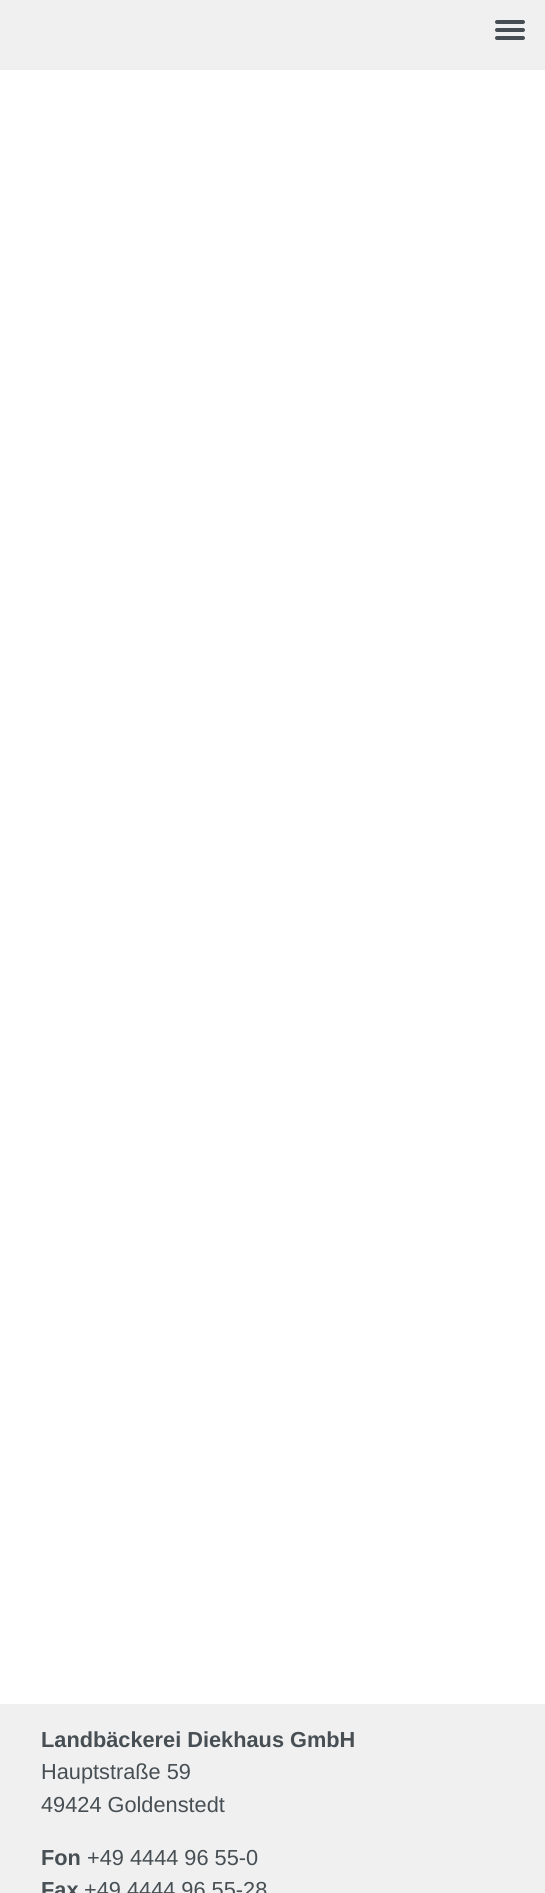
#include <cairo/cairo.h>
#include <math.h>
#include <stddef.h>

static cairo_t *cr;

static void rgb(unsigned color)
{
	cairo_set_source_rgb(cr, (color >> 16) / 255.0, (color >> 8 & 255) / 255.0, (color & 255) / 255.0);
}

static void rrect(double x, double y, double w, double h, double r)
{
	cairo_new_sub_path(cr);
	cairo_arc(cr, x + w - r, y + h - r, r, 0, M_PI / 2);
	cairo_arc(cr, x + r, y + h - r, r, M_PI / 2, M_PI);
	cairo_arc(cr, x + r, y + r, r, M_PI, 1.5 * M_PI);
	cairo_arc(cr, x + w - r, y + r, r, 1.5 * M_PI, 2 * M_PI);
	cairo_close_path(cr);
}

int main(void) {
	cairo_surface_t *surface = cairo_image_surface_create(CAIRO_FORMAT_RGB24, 545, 1893);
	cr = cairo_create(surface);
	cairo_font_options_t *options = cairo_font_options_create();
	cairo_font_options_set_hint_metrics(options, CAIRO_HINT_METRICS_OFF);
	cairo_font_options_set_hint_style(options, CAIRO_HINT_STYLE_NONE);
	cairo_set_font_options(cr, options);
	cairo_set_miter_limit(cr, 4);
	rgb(0xffffff);
	cairo_paint(cr);
	rgb(0xf0f0f0);
	cairo_rectangle(cr, 0, 0, 545, 70);
	cairo_fill(cr);
	rgb(0x464e54);
	rrect(495, 20, 30, 4, 2);
	cairo_fill(cr);
	rrect(495, 28, 30, 4, 2);
	cairo_fill(cr);
	rrect(495, 36, 30, 4, 2);
	cairo_fill(cr);
	rgb(0xf0f0f0);
	cairo_rectangle(cr, 0, 1704, 545, 189);
	cairo_fill(cr);
	cairo_select_font_face(cr, "Liberation Sans", CAIRO_FONT_SLANT_NORMAL, CAIRO_FONT_WEIGHT_BOLD);
	cairo_set_font_size(cr, 21.75);
	rgb(0x474f54);
	cairo_move_to(cr, 41, 1747);
	cairo_show_text(cr, "Landbäckerei Diekhaus GmbH");
	cairo_select_font_face(cr, "Liberation Sans", CAIRO_FONT_SLANT_NORMAL, CAIRO_FONT_WEIGHT_NORMAL);
	cairo_move_to(cr, 41, 1779);
	cairo_show_text(cr, "Hauptstraße 59");
	cairo_move_to(cr, 41, 1812);
	cairo_show_text(cr, "49424 Goldenstedt");
	cairo_select_font_face(cr, "Liberation Sans", CAIRO_FONT_SLANT_NORMAL, CAIRO_FONT_WEIGHT_BOLD);
	cairo_move_to(cr, 41, 1865);
	cairo_show_text(cr, "Fon");
	cairo_select_font_face(cr, "Liberation Sans", CAIRO_FONT_SLANT_NORMAL, CAIRO_FONT_WEIGHT_NORMAL);
	cairo_move_to(cr, 87, 1865);
	cairo_show_text(cr, "+49 4444 96 55-0");
	cairo_select_font_face(cr, "Liberation Sans", CAIRO_FONT_SLANT_NORMAL, CAIRO_FONT_WEIGHT_BOLD);
	cairo_move_to(cr, 41, 1897);
	cairo_show_text(cr, "Fax");
	cairo_select_font_face(cr, "Liberation Sans", CAIRO_FONT_SLANT_NORMAL, CAIRO_FONT_WEIGHT_NORMAL);
	cairo_move_to(cr, 84, 1897);
	cairo_show_text(cr, "+49 4444 96 55-28");
	cairo_surface_write_to_png(surface, "page.png");
	cairo_font_options_destroy(options);
	cairo_destroy(cr);
	cairo_surface_destroy(surface);
	return 0;
}
